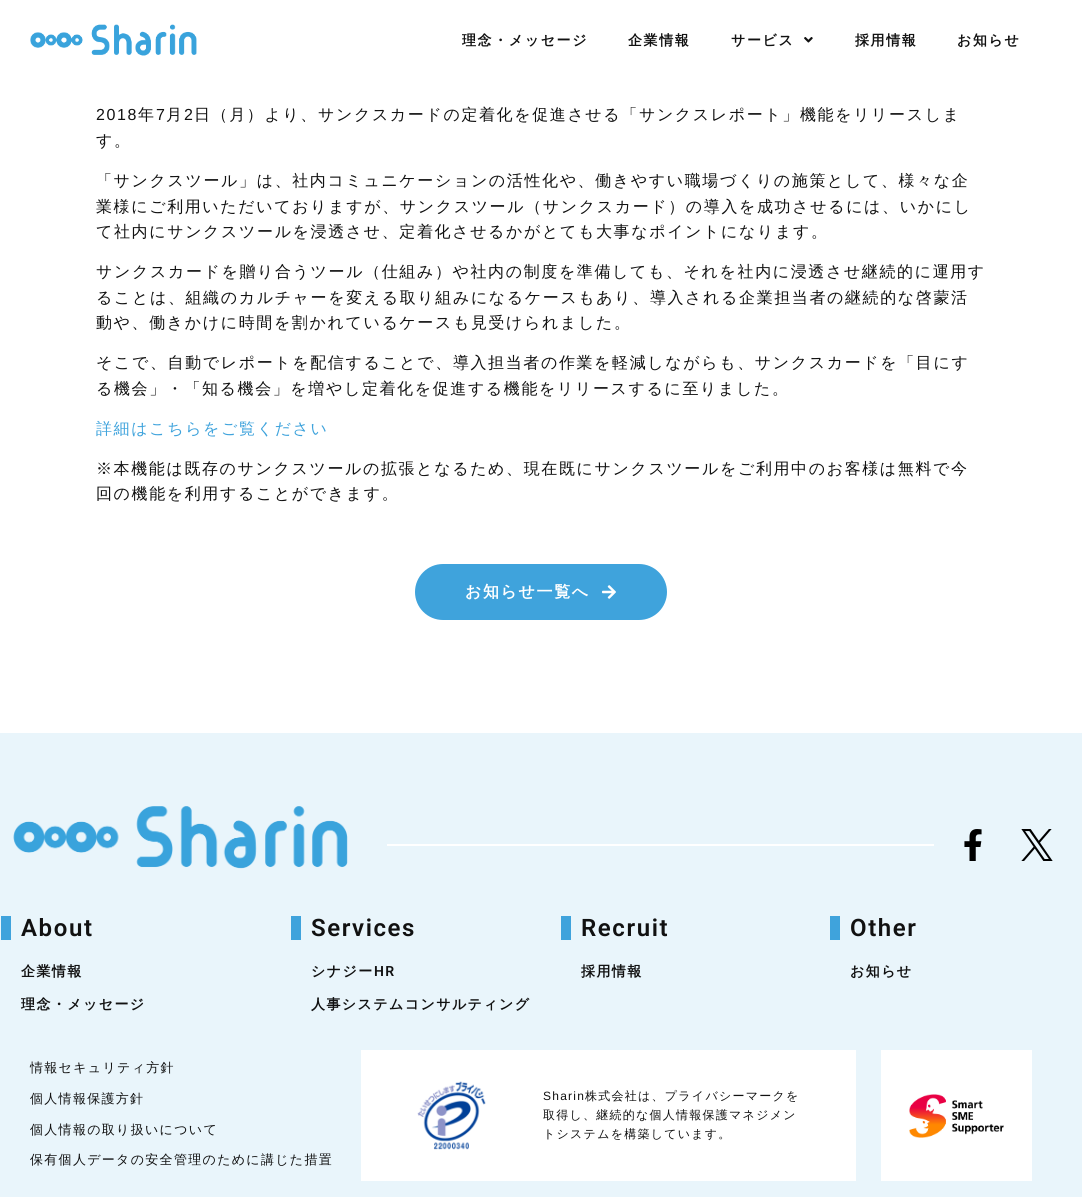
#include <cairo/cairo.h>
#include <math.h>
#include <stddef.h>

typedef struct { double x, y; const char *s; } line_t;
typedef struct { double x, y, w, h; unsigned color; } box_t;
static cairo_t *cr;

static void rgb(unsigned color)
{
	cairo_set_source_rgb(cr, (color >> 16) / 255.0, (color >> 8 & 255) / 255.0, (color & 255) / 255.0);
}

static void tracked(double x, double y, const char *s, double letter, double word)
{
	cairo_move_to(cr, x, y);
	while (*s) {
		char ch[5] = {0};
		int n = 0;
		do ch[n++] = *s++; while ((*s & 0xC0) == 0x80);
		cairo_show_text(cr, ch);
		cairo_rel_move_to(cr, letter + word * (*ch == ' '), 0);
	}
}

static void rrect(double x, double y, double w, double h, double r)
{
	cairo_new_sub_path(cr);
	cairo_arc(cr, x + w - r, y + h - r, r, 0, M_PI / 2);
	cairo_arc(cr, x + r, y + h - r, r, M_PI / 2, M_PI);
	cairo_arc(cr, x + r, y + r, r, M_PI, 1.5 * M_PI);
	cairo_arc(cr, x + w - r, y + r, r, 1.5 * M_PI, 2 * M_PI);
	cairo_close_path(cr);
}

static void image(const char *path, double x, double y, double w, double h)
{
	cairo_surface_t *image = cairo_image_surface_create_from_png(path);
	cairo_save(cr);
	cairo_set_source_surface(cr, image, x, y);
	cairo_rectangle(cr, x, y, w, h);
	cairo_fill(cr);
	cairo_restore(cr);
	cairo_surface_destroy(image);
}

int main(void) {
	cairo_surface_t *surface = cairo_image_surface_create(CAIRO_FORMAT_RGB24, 1082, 1197);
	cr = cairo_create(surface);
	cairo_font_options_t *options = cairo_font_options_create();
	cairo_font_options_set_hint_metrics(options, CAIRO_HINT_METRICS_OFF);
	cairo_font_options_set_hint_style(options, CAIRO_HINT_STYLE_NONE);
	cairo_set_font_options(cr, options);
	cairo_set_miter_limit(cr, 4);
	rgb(0xffffff);
	cairo_paint(cr);
	image("img/1.png", 30, 24, 167, 32);
	image("img/2.png", 804, 37, 9, 6);
	rgb(0x3fa3dc);
	rrect(413.5, 562.5, 255, 59, 29.5);
	cairo_fill_preserve(cr);
	rgb(0xffffff);
	cairo_set_line_width(cr, 3);
	cairo_stroke(cr);
	image("img/3.png", 602, 585, 14, 14);
	rgb(0xe9f5fb);
	cairo_rectangle(cr, 0, 733, 1082, 464);
	cairo_fill(cr);
	image("img/4.png", 13, 806, 335, 63);
	rgb(0xffffff);
	cairo_rectangle(cr, 387, 844, 547, 2);
	cairo_fill(cr);
	image("img/5.png", 964, 829, 18, 32);
	image("img/6.png", 1021, 829, 32, 32);
	{
		static const box_t items[] = {
			{1, 916, 10, 24, 0x3fa3dc},
			{291, 916, 10, 24, 0x3fa3dc},
			{561, 916, 10, 24, 0x3fa3dc},
			{830, 916, 10, 24, 0x3fa3dc},
			{361, 1050, 495, 131, 0xffffff},
		};
		for (size_t i = 0; i < sizeof items / sizeof *items; i++) {
			rgb(items[i].color);
			cairo_rectangle(cr, items[i].x, items[i].y, items[i].w, items[i].h);
			cairo_fill(cr);
		}
	}
	image("img/7.png", 417, 1081, 69, 69);
	cairo_rectangle(cr, 881, 1050, 151, 131);
	cairo_fill(cr);
	image("img/8.png", 909, 1094, 95, 44);
	cairo_select_font_face(cr, "WenQuanYi Zen Hei", CAIRO_FONT_SLANT_NORMAL, CAIRO_FONT_WEIGHT_BOLD);
	cairo_set_font_size(cr, 14);
	rgb(0x111111);
	{
		static const line_t items[] = {
			{462, 45, "理念・メッセージ"},
			{628, 45, "企業情報"},
			{731, 45, "サービス"},
			{855, 45, "採用情報"},
			{957, 45, "お知らせ"},
		};
		for (size_t i = 0; i < sizeof items / sizeof *items; i++) {
			tracked(items[i].x, items[i].y, items[i].s, 1.6, 0);
		}
	}
	cairo_select_font_face(cr, "Liberation Sans", CAIRO_FONT_SLANT_NORMAL, CAIRO_FONT_WEIGHT_NORMAL);
	cairo_set_font_size(cr, 16);
	tracked(96, 120, "2018", 1.6, 0);
	cairo_select_font_face(cr, "WenQuanYi Zen Hei Medium", CAIRO_FONT_SLANT_NORMAL, CAIRO_FONT_WEIGHT_NORMAL);
	tracked(138, 120, "年", 1.6, 0);
	cairo_select_font_face(cr, "Liberation Sans", CAIRO_FONT_SLANT_NORMAL, CAIRO_FONT_WEIGHT_NORMAL);
	tracked(156, 120, "7", 1.6, 0);
	cairo_select_font_face(cr, "WenQuanYi Zen Hei Medium", CAIRO_FONT_SLANT_NORMAL, CAIRO_FONT_WEIGHT_NORMAL);
	tracked(166, 120, "月", 1.6, 0);
	cairo_select_font_face(cr, "Liberation Sans", CAIRO_FONT_SLANT_NORMAL, CAIRO_FONT_WEIGHT_NORMAL);
	tracked(184, 120, "2", 1.6, 0);
	cairo_select_font_face(cr, "WenQuanYi Zen Hei Medium", CAIRO_FONT_SLANT_NORMAL, CAIRO_FONT_WEIGHT_NORMAL);
	{
		static const line_t items[] = {
			{194, 120, "日（月）より、サンクスカードの定着化を促進させる「サンクスレポート」機能をリリースしま"},
			{96, 146, "す。"},
			{96, 186, "「サンクスツール」は、社内コミュニケーションの活性化や、働きやすい職場づくりの施策として、様々な企"},
			{96, 212, "業様にご利用いただいておりますが、サンクスツール（サンクスカード）の導入を成功させるには、いかにし"},
			{96, 237, "て社内にサンクスツールを浸透させ、定着化させるかがとても大事なポイントになります。"},
			{96, 277, "サンクスカードを贈り合うツール（仕組み）や社内の制度を準備しても、それを社内に浸透させ継続的に運用す"},
			{96, 303, "ることは、組織のカルチャーを変える取り組みになるケースもあり、導入される企業担当者の継続的な啓蒙活"},
			{96, 328, "動や、働きかけに時間を割かれているケースも見受けられました。"},
			{96, 368, "そこで、自動でレポートを配信することで、導入担当者の作業を軽減しながらも、サンクスカードを「目にす"},
			{96, 394, "る機会」・「知る機会」を増やし定着化を促進する機能をリリースするに至りました。"},
		};
		for (size_t i = 0; i < sizeof items / sizeof *items; i++) {
			tracked(items[i].x, items[i].y, items[i].s, 1.6, 0);
		}
	}
	rgb(0x3fa3dc);
	tracked(96, 434, "詳細はこちらをご覧ください", 1.6, 0);
	rgb(0x111111);
	tracked(96, 474, "※本機能は既存のサンクスツールの拡張となるため、現在既にサンクスツールをご利用中のお客様は無料で今", 1.6, 0);
	tracked(96, 499, "回の機能を利用することができます。", 1.6, 0);
	cairo_select_font_face(cr, "WenQuanYi Zen Hei", CAIRO_FONT_SLANT_NORMAL, CAIRO_FONT_WEIGHT_BOLD);
	rgb(0xffffff);
	tracked(465, 597, "お知らせ一覧へ", 1.6, 0);
	cairo_select_font_face(cr, "Roboto SemiBold", CAIRO_FONT_SLANT_NORMAL, CAIRO_FONT_WEIGHT_NORMAL);
	cairo_set_font_size(cr, 24);
	rgb(0x111111);
	tracked(21, 936, "About", 1.6, 0);
	cairo_select_font_face(cr, "WenQuanYi Zen Hei", CAIRO_FONT_SLANT_NORMAL, CAIRO_FONT_WEIGHT_BOLD);
	cairo_set_font_size(cr, 14);
	tracked(21, 976, "企業情報", 1.4, 0);
	tracked(21, 1009, "理念・メッセージ", 1.4, 0);
	cairo_select_font_face(cr, "Roboto SemiBold", CAIRO_FONT_SLANT_NORMAL, CAIRO_FONT_WEIGHT_NORMAL);
	cairo_set_font_size(cr, 24);
	tracked(311, 936, "Services", 1.6, 0);
	cairo_select_font_face(cr, "WenQuanYi Zen Hei", CAIRO_FONT_SLANT_NORMAL, CAIRO_FONT_WEIGHT_BOLD);
	cairo_set_font_size(cr, 14);
	tracked(311, 976, "シナジー", 1.4, 0);
	cairo_select_font_face(cr, "Roboto SemiBold", CAIRO_FONT_SLANT_NORMAL, CAIRO_FONT_WEIGHT_NORMAL);
	tracked(374, 976, "HR", 1.4, 0);
	cairo_select_font_face(cr, "WenQuanYi Zen Hei", CAIRO_FONT_SLANT_NORMAL, CAIRO_FONT_WEIGHT_BOLD);
	tracked(311, 1009, "人事システムコンサルティング", 1.4, 0);
	cairo_select_font_face(cr, "Roboto SemiBold", CAIRO_FONT_SLANT_NORMAL, CAIRO_FONT_WEIGHT_NORMAL);
	cairo_set_font_size(cr, 24);
	tracked(581, 936, "Recruit", 1.6, 0);
	cairo_select_font_face(cr, "WenQuanYi Zen Hei", CAIRO_FONT_SLANT_NORMAL, CAIRO_FONT_WEIGHT_BOLD);
	cairo_set_font_size(cr, 14);
	tracked(581, 976, "採用情報", 1.4, 0);
	cairo_select_font_face(cr, "Roboto SemiBold", CAIRO_FONT_SLANT_NORMAL, CAIRO_FONT_WEIGHT_NORMAL);
	cairo_set_font_size(cr, 24);
	tracked(850, 936, "Other", 1.6, 0);
	cairo_select_font_face(cr, "WenQuanYi Zen Hei", CAIRO_FONT_SLANT_NORMAL, CAIRO_FONT_WEIGHT_BOLD);
	cairo_set_font_size(cr, 14);
	tracked(850, 976, "お知らせ", 1.4, 0);
	cairo_select_font_face(cr, "WenQuanYi Zen Hei Medium", CAIRO_FONT_SLANT_NORMAL, CAIRO_FONT_WEIGHT_NORMAL);
	cairo_set_font_size(cr, 13);
	{
		static const line_t items[] = {
			{30, 1072, "情報セキュリティ方針"},
			{30, 1103, "個人情報保護方針"},
			{30, 1134, "個人情報の取り扱いについて"},
			{30, 1164, "保有個人データの安全管理のために講じた措置"},
		};
		for (size_t i = 0; i < sizeof items / sizeof *items; i++) {
			tracked(items[i].x, items[i].y, items[i].s, 1.3, 0);
		}
	}
	cairo_select_font_face(cr, "Liberation Sans", CAIRO_FONT_SLANT_NORMAL, CAIRO_FONT_WEIGHT_NORMAL);
	cairo_set_font_size(cr, 12);
	tracked(543, 1100, "Sharin", 1.25, 0);
	cairo_select_font_face(cr, "WenQuanYi Zen Hei Medium", CAIRO_FONT_SLANT_NORMAL, CAIRO_FONT_WEIGHT_NORMAL);
	{
		static const line_t items[] = {
			{585, 1100, "株式会社は、プライバシーマークを"},
			{543, 1119, "取得し、継続的な個人情報保護マネジメン"},
			{543, 1138, "トシステムを構築しています。"},
		};
		for (size_t i = 0; i < sizeof items / sizeof *items; i++) {
			tracked(items[i].x, items[i].y, items[i].s, 1.25, 0);
		}
	}
	cairo_surface_write_to_png(surface, "page.png");
	cairo_font_options_destroy(options);
	cairo_destroy(cr);
	cairo_surface_destroy(surface);
	return 0;
}
